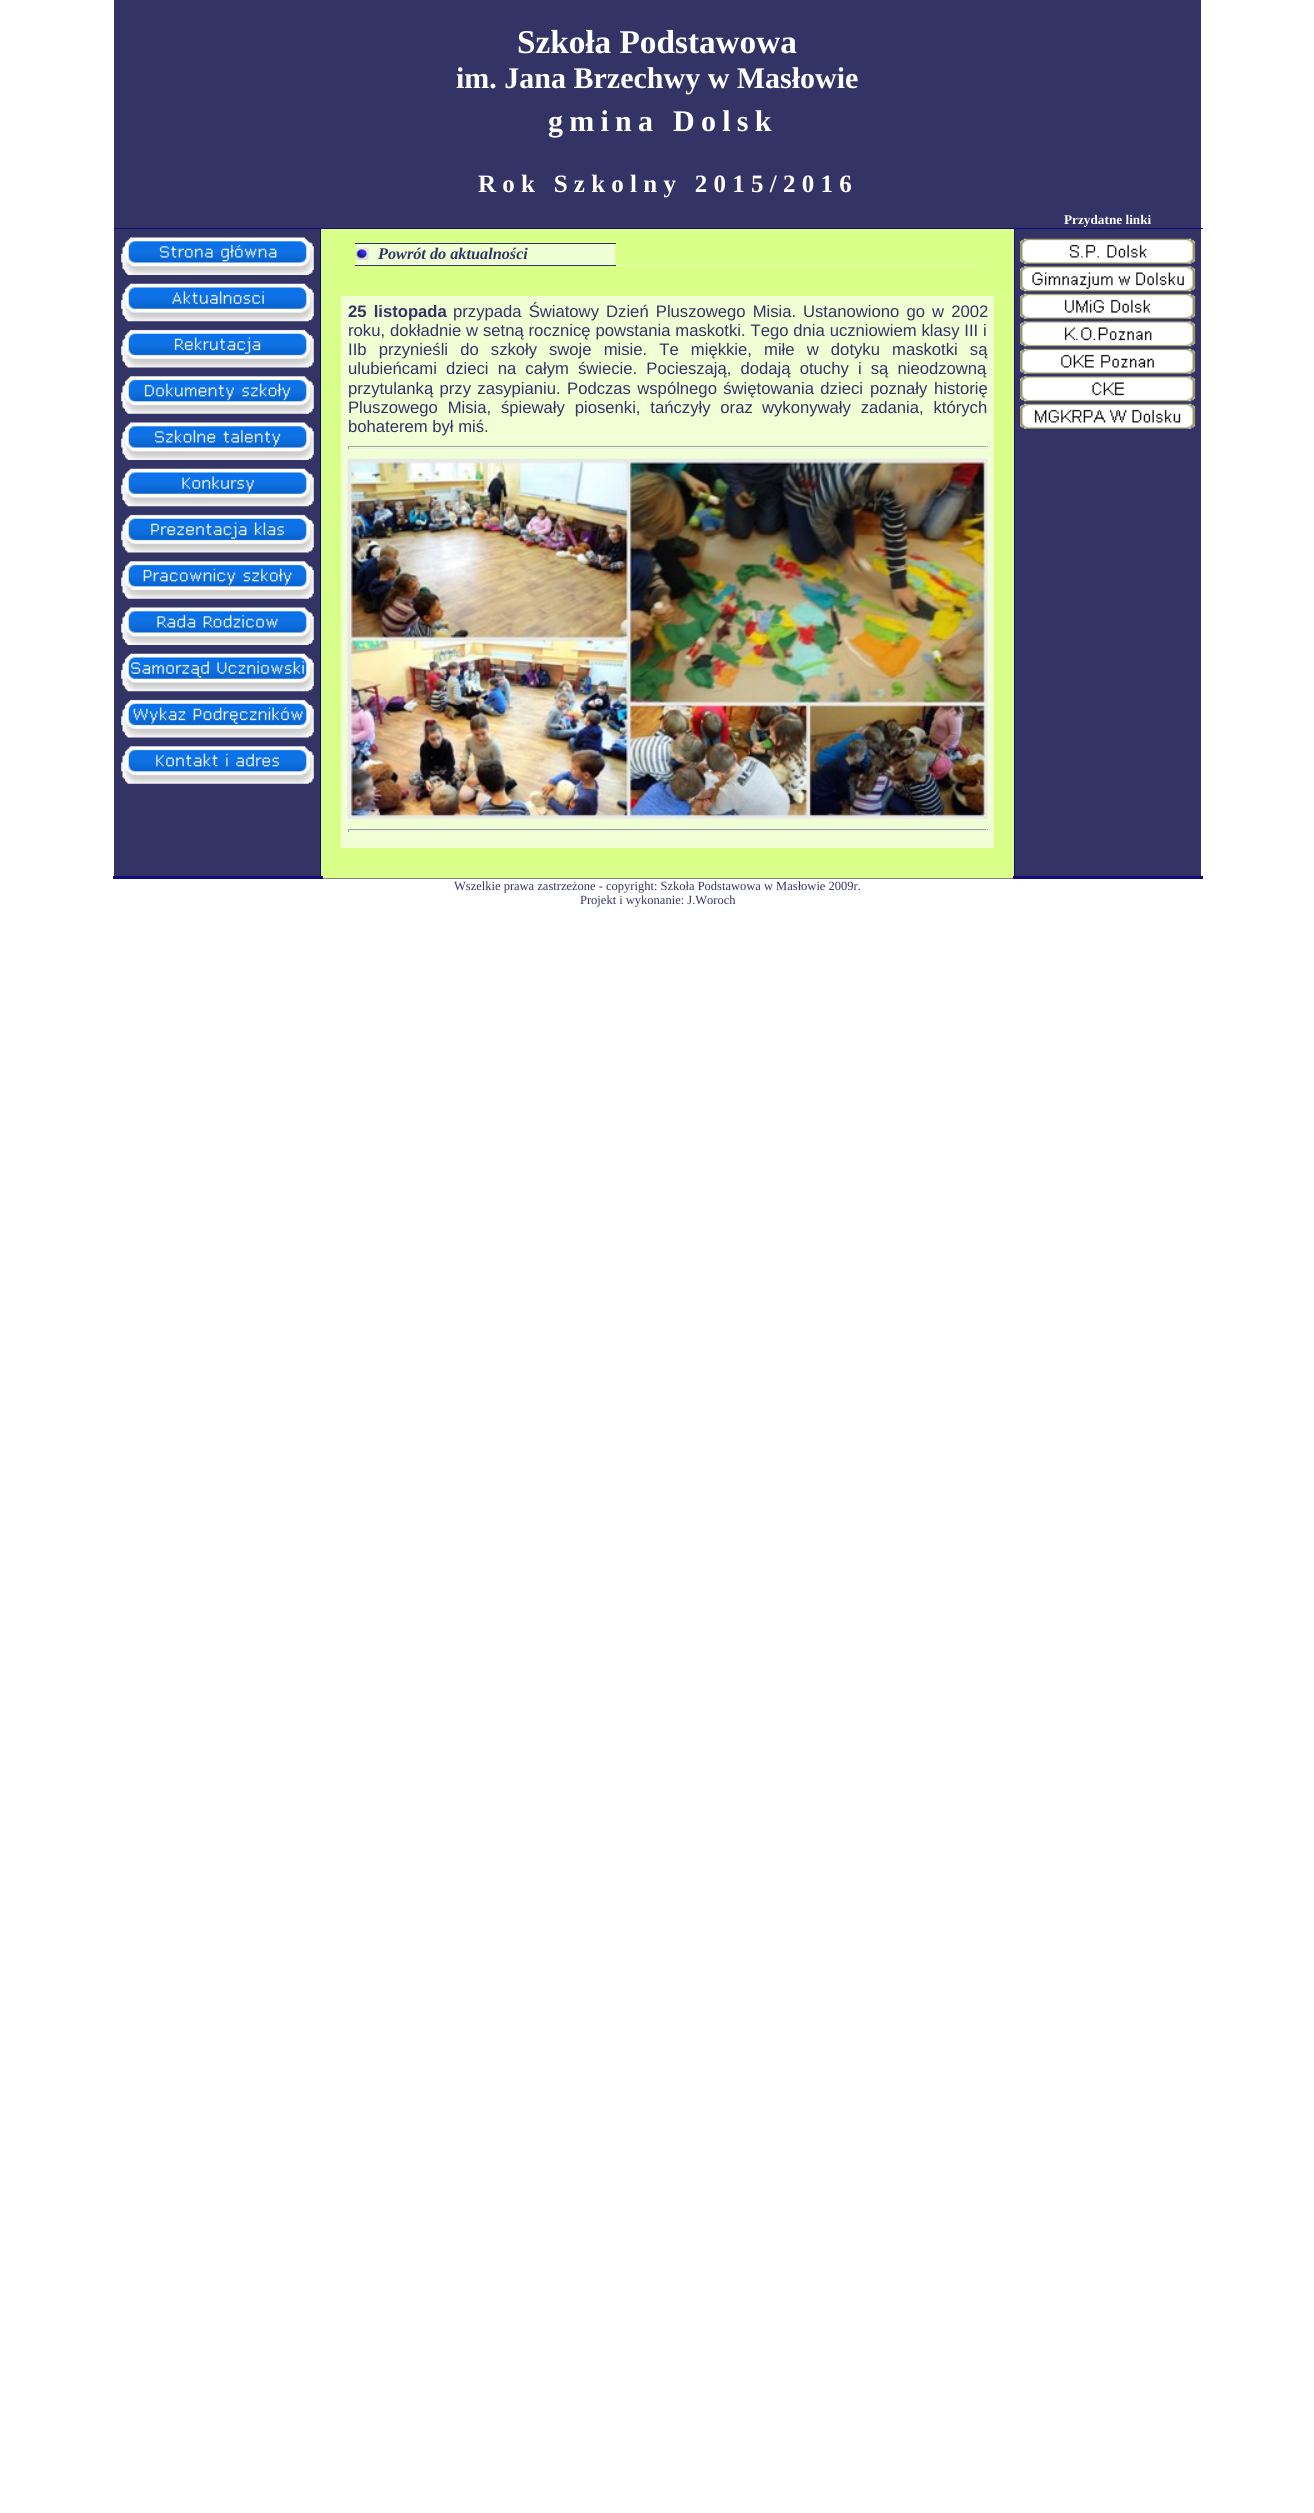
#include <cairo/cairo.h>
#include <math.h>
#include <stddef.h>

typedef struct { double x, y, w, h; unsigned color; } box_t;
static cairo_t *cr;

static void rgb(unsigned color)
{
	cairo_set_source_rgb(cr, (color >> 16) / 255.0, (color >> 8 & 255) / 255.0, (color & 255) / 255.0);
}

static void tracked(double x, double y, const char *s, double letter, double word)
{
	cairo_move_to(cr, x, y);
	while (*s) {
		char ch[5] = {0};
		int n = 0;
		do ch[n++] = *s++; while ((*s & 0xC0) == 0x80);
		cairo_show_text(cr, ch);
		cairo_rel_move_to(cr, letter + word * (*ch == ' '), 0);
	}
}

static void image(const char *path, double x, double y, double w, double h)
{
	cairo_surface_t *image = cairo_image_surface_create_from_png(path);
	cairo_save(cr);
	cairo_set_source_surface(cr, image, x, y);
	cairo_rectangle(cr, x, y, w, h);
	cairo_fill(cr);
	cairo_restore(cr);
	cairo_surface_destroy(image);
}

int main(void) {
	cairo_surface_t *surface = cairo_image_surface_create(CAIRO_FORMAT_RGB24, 1314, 2513);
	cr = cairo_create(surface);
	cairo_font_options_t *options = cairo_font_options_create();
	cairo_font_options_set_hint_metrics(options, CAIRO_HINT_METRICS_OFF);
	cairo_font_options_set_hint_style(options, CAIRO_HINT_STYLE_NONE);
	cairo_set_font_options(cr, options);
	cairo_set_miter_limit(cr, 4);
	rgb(0xffffff);
	cairo_paint(cr);
	{
		static const box_t items[] = {
			{114, 0, 1087, 876, 0x333366},
			{323, 878, 690, 1, 0x808080},
			{320, 228, 1, 651, 0x130b78},
			{1014, 228, 1, 651, 0x130b78},
			{114, 228, 1089, 1, 0x130b78},
			{321, 229, 693, 649, 0xd9ff88},
			{113, 876, 210, 3, 0x130b78},
		};
		for (size_t i = 0; i < sizeof items / sizeof *items; i++) {
			rgb(items[i].color);
			cairo_rectangle(cr, items[i].x, items[i].y, items[i].w, items[i].h);
			cairo_fill(cr);
		}
	}
	image("img/1.png", 121, 237, 193, 38);
	image("img/2.png", 121, 283, 193, 39);
	image("img/3.png", 121, 329, 193, 39);
	image("img/4.png", 121, 376, 193, 38);
	image("img/5.png", 121, 422, 193, 38);
	image("img/6.png", 121, 468, 193, 39);
	image("img/7.png", 121, 514, 193, 39);
	image("img/8.png", 121, 561, 193, 38);
	image("img/9.png", 121, 607, 193, 38);
	image("img/10.png", 121, 653, 193, 39);
	image("img/11.png", 121, 699, 193, 39);
	image("img/12.png", 121, 746, 193, 38);
	{
		static const box_t items[] = {
			{616, 265, 363, 1, 0xe7ffb3},
			{356, 244, 259, 21, 0xf1ffd5},
			{355, 243, 261, 1, 0x333366},
			{355, 265, 261, 1, 0x333366},
		};
		for (size_t i = 0; i < sizeof items / sizeof *items; i++) {
			rgb(items[i].color);
			cairo_rectangle(cr, items[i].x, items[i].y, items[i].w, items[i].h);
			cairo_fill(cr);
		}
	}
	image("img/13.png", 356, 247, 13, 13);
	{
		static const box_t items[] = {
			{341, 296, 653, 552, 0xf1ffd5},
			{348, 446, 640, 1, 0x9f9f9f},
			{986, 446, 1, 3, 0xeeeeee},
			{348, 448, 640, 1, 0xeeeeee},
			{348, 446, 1, 3, 0x9f9f9f},
		};
		for (size_t i = 0; i < sizeof items / sizeof *items; i++) {
			rgb(items[i].color);
			cairo_rectangle(cr, items[i].x, items[i].y, items[i].w, items[i].h);
			cairo_fill(cr);
		}
	}
	image("img/14.png", 347, 458, 641, 361);
	{
		static const box_t items[] = {
			{348, 829, 640, 1, 0x9f9f9f},
			{986, 829, 1, 3, 0xeeeeee},
			{348, 830, 640, 1, 0xeeeeee},
			{348, 829, 1, 3, 0x9f9f9f},
			{1013, 876, 190, 3, 0x130b78},
		};
		for (size_t i = 0; i < sizeof items / sizeof *items; i++) {
			rgb(items[i].color);
			cairo_rectangle(cr, items[i].x, items[i].y, items[i].w, items[i].h);
			cairo_fill(cr);
		}
	}
	image("img/15.png", 1020, 238, 176, 26);
	image("img/16.png", 1020, 266, 176, 26);
	image("img/17.png", 1020, 293, 176, 26);
	image("img/18.png", 1020, 321, 176, 26);
	image("img/19.png", 1020, 348, 176, 26);
	image("img/20.png", 1020, 376, 176, 26);
	image("img/21.png", 1020, 403, 176, 26);
	cairo_select_font_face(cr, "Liberation Serif", CAIRO_FONT_SLANT_NORMAL, CAIRO_FONT_WEIGHT_BOLD);
	cairo_set_font_size(cr, 33.25);
	rgb(0xffffff);
	cairo_move_to(cr, 517, 53);
	cairo_show_text(cr, "Szkoła Podstawowa");
	cairo_set_font_size(cr, 30);
	cairo_move_to(cr, 456, 88);
	cairo_show_text(cr, "im. Jana Brzechwy w Masłowie");
	tracked(548, 131, "gmina Dolsk", 6.25, 0);
	cairo_set_font_size(cr, 25);
	tracked(478, 192, "Rok Szkolny 2015/2016", 6.25, 0);
	cairo_set_font_size(cr, 13.25);
	cairo_move_to(cr, 1064, 224);
	cairo_show_text(cr, "Przydatne linki");
	cairo_select_font_face(cr, "Liberation Serif", CAIRO_FONT_SLANT_ITALIC, CAIRO_FONT_WEIGHT_BOLD);
	cairo_set_font_size(cr, 16.25);
	rgb(0x333366);
	cairo_move_to(cr, 378, 259);
	cairo_show_text(cr, "Powrót do aktualności");
	cairo_select_font_face(cr, "Liberation Sans", CAIRO_FONT_SLANT_NORMAL, CAIRO_FONT_WEIGHT_BOLD);
	cairo_set_font_size(cr, 16.65);
	tracked(348, 317, "25 listopada", 0, 2.5);
	cairo_select_font_face(cr, "Liberation Sans", CAIRO_FONT_SLANT_NORMAL, CAIRO_FONT_WEIGHT_NORMAL);
	tracked(453, 317, "przypada Światowy Dzień Pluszowego Misia.", 0, 2.5);
	tracked(803, 317, "Ustanowiono go w 2002", 0, 2.5);
	tracked(348, 336, "roku, dokładnie w setną rocznicę powstania maskotki. Tego dnia uczniowiem klasy III i", 0, 0.25);
	tracked(348, 355, "IIb przynieśli do szkoły", 0, 7.5);
	tracked(549, 355, "swoje misie. Te miękkie, miłe w dotyku maskotki są", 0, 7.5);
	cairo_move_to(cr, 348, 374);
	cairo_show_text(cr, "ulubieńcami");
	tracked(446, 374, "dzieci na całym świecie. Pocieszają, dodają otuchy i są nieodzowną", 0, 4.5);
	tracked(348, 394, "przytulanką przy zasypianiu. Podczas wspólnego świętowania dzieci", 0, 1.75);
	tracked(870, 394, "poznały historię", 0, 2);
	tracked(348, 413, "Pluszowego Misia, śpiewały piosenki, tańczyły oraz", 0, 5.25);
	tracked(762, 413, "wykonywały zadania, których", 0, 5.25);
	cairo_move_to(cr, 348, 432);
	cairo_show_text(cr, "bohaterem był miś.");
	cairo_select_font_face(cr, "Liberation Serif", CAIRO_FONT_SLANT_NORMAL, CAIRO_FONT_WEIGHT_NORMAL);
	cairo_set_font_size(cr, 12.5);
	cairo_move_to(cr, 454, 890);
	cairo_show_text(cr, "Wszelkie prawa zastrzeżone - copyright: Szkoła Podstawowa w Masłowie 2009r.");
	cairo_move_to(cr, 580, 904);
	cairo_show_text(cr, "Projekt i wykonanie: J.Woroch");
	cairo_surface_write_to_png(surface, "page.png");
	cairo_font_options_destroy(options);
	cairo_destroy(cr);
	cairo_surface_destroy(surface);
	return 0;
}
